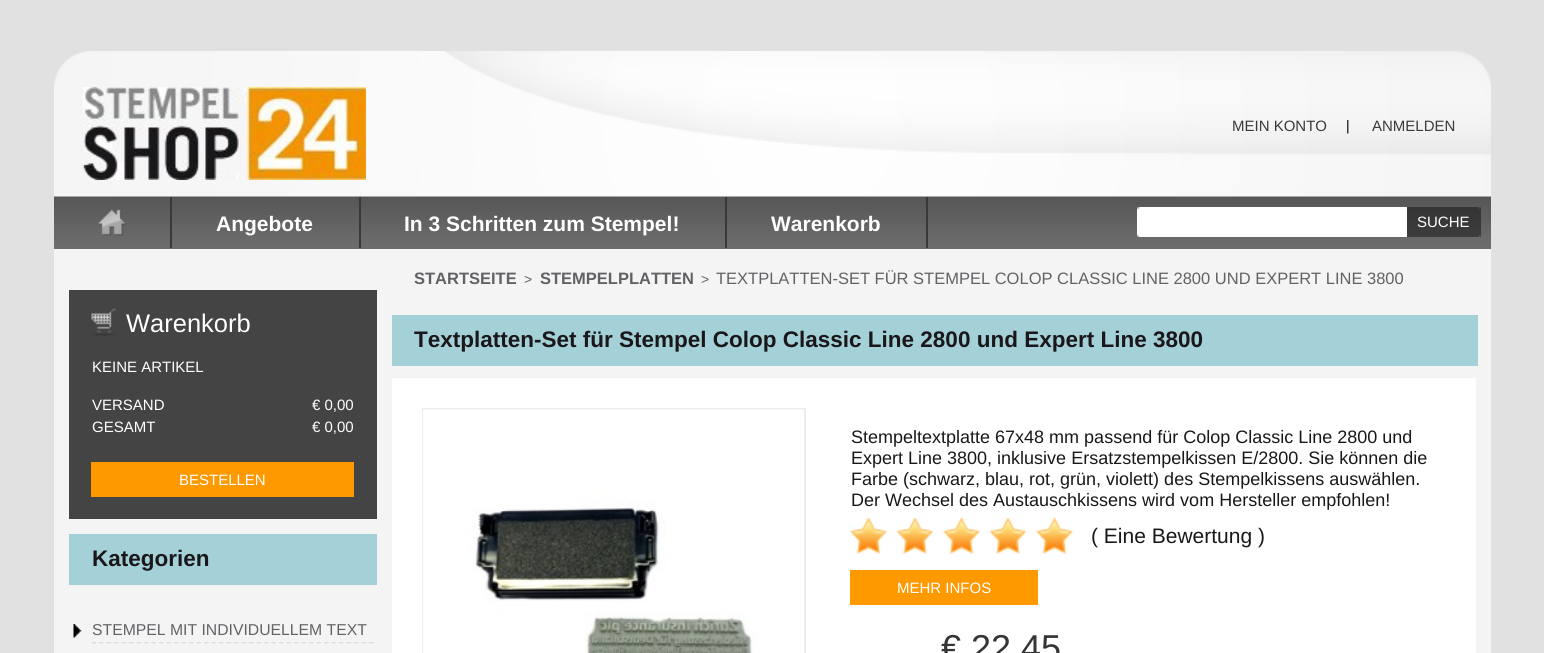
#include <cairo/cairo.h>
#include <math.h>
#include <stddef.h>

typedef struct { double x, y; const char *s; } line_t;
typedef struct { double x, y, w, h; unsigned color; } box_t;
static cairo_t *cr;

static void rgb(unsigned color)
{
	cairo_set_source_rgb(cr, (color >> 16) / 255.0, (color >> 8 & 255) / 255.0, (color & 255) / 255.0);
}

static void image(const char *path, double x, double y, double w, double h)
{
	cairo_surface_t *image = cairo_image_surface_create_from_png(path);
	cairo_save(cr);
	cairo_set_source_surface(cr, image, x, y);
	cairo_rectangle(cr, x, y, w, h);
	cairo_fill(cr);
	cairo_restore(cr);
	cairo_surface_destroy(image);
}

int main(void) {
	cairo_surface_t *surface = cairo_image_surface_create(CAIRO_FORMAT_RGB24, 1544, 653);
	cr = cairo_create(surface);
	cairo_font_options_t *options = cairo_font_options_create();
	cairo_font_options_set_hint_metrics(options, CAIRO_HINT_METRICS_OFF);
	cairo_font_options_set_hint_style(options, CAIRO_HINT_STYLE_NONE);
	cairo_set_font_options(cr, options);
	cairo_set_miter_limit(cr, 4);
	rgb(0xe1e1e1);
	cairo_paint(cr);
	image("img/1.png", 54, 51, 1437, 198);
	image("img/2.png", 82, 87, 284, 93);
	image("img/3.png", 1347, 120, 2, 14);
	image("img/4.png", 98, 209, 28, 27);
	{
		static const box_t items[] = {
			{170, 197, 2, 51, 0x393939},
			{359, 197, 2, 51, 0x393939},
			{725, 197, 2, 51, 0x393939},
			{926, 197, 2, 51, 0x393939},
			{1141, 207, 266, 30, 0xffffff},
		};
		for (size_t i = 0; i < sizeof items / sizeof *items; i++) {
			rgb(items[i].color);
			cairo_rectangle(cr, items[i].x, items[i].y, items[i].w, items[i].h);
			cairo_fill(cr);
		}
	}
	image("img/5.png", 1137, 207, 4, 30);
	rgb(0x373737);
	cairo_rectangle(cr, 1480, 207, 1, 30);
	cairo_fill(cr);
	image("img/6.png", 1407, 207, 74, 30);
	rgb(0xf4f4f4);
	cairo_rectangle(cr, 54, 249, 1437, 404);
	cairo_fill(cr);
	rgb(0x444444);
	cairo_rectangle(cr, 69, 290, 308, 229);
	cairo_fill(cr);
	image("img/7.png", 91, 308, 25, 28);
	rgb(0xff9900);
	cairo_rectangle(cr, 91, 462, 263, 35);
	cairo_fill(cr);
	rgb(0xa4d1d7);
	cairo_rectangle(cr, 69, 534, 308, 51);
	cairo_fill(cr);
	image("img/8.png", 73, 624, 9, 14);
	image("img/9.png", 91, 642, 286, 2);
	cairo_rectangle(cr, 392, 315, 1086, 51);
	cairo_fill(cr);
	rgb(0xffffff);
	cairo_rectangle(cr, 392, 378, 1084, 275);
	cairo_fill(cr);
	cairo_rectangle(cr, 423, 409, 382, 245);
	rgb(0xececec);
	cairo_stroke(cr);
	image("img/10.png", 423, 409, 381, 244);
	image("img/11.png", 850, 517, 37, 37);
	image("img/12.png", 897, 517, 36, 37);
	image("img/11.png", 943, 517, 37, 37);
	image("img/12.png", 990, 517, 36, 37);
	image("img/11.png", 1036, 517, 37, 37);
	rgb(0xff9900);
	cairo_rectangle(cr, 850, 570, 188, 35);
	cairo_fill(cr);
	cairo_select_font_face(cr, "Liberation Sans", CAIRO_FONT_SLANT_NORMAL, CAIRO_FONT_WEIGHT_NORMAL);
	cairo_set_font_size(cr, 15);
	rgb(0x3b3a3a);
	cairo_move_to(cr, 1232, 131);
	cairo_show_text(cr, "MEIN KONTO");
	cairo_move_to(cr, 1372, 131);
	cairo_show_text(cr, "ANMELDEN");
	cairo_select_font_face(cr, "Liberation Sans", CAIRO_FONT_SLANT_NORMAL, CAIRO_FONT_WEIGHT_BOLD);
	cairo_set_font_size(cr, 21);
	rgb(0xffffff);
	{
		static const line_t items[] = {
			{216, 231, "Angebote"},
			{404, 231, "In 3 Schritten zum Stempel!"},
			{771, 231, "Warenkorb"},
		};
		for (size_t i = 0; i < sizeof items / sizeof *items; i++) {
			cairo_move_to(cr, items[i].x, items[i].y);
			cairo_show_text(cr, items[i].s);
		}
	}
	cairo_select_font_face(cr, "Liberation Sans", CAIRO_FONT_SLANT_NORMAL, CAIRO_FONT_WEIGHT_NORMAL);
	cairo_set_font_size(cr, 15);
	cairo_move_to(cr, 1417, 227);
	cairo_show_text(cr, "SUCHE");
	cairo_set_font_size(cr, 25.5);
	cairo_move_to(cr, 126, 332);
	cairo_show_text(cr, "Warenkorb");
	cairo_set_font_size(cr, 15);
	{
		static const line_t items[] = {
			{92, 372, "KEINE ARTIKEL"},
			{92, 410, "VERSAND"},
			{312, 410, "€ 0,00"},
			{92, 432, "GESAMT"},
			{312, 432, "€ 0,00"},
			{179, 485, "BESTELLEN"},
		};
		for (size_t i = 0; i < sizeof items / sizeof *items; i++) {
			cairo_move_to(cr, items[i].x, items[i].y);
			cairo_show_text(cr, items[i].s);
		}
	}
	cairo_select_font_face(cr, "Liberation Sans", CAIRO_FONT_SLANT_NORMAL, CAIRO_FONT_WEIGHT_BOLD);
	cairo_set_font_size(cr, 22.5);
	rgb(0x1a171b);
	cairo_move_to(cr, 92, 566);
	cairo_show_text(cr, "Kategorien");
	cairo_select_font_face(cr, "Liberation Sans", CAIRO_FONT_SLANT_NORMAL, CAIRO_FONT_WEIGHT_NORMAL);
	cairo_set_font_size(cr, 15.75);
	rgb(0x636165);
	cairo_move_to(cr, 92, 635);
	cairo_show_text(cr, "STEMPEL MIT INDIVIDUELLEM TEXT");
	cairo_select_font_face(cr, "Liberation Sans", CAIRO_FONT_SLANT_NORMAL, CAIRO_FONT_WEIGHT_BOLD);
	cairo_set_font_size(cr, 16.5);
	cairo_move_to(cr, 414, 284);
	cairo_show_text(cr, "STARTSEITE");
	cairo_select_font_face(cr, "Liberation Sans", CAIRO_FONT_SLANT_NORMAL, CAIRO_FONT_WEIGHT_NORMAL);
	cairo_set_font_size(cr, 14);
	cairo_move_to(cr, 524, 284);
	cairo_show_text(cr, ">");
	cairo_select_font_face(cr, "Liberation Sans", CAIRO_FONT_SLANT_NORMAL, CAIRO_FONT_WEIGHT_BOLD);
	cairo_set_font_size(cr, 16.5);
	cairo_move_to(cr, 540, 284);
	cairo_show_text(cr, "STEMPELPLATTEN");
	cairo_select_font_face(cr, "Liberation Sans", CAIRO_FONT_SLANT_NORMAL, CAIRO_FONT_WEIGHT_NORMAL);
	cairo_set_font_size(cr, 14);
	cairo_move_to(cr, 701, 284);
	cairo_show_text(cr, ">");
	cairo_set_font_size(cr, 16.5);
	cairo_move_to(cr, 716, 284);
	cairo_show_text(cr, "TEXTPLATTEN-SET FÜR STEMPEL COLOP CLASSIC LINE 2800 UND EXPERT LINE 3800");
	cairo_select_font_face(cr, "Liberation Sans", CAIRO_FONT_SLANT_NORMAL, CAIRO_FONT_WEIGHT_BOLD);
	cairo_set_font_size(cr, 22.5);
	rgb(0x1a171b);
	cairo_move_to(cr, 414, 347);
	cairo_show_text(cr, "Textplatten-Set für Stempel Colop Classic Line 2800 und Expert Line 3800");
	cairo_select_font_face(cr, "Liberation Sans", CAIRO_FONT_SLANT_NORMAL, CAIRO_FONT_WEIGHT_NORMAL);
	cairo_set_font_size(cr, 18);
	{
		static const line_t items[] = {
			{851, 443, "Stempeltextplatte 67x48 mm passend für Colop Classic Line 2800 und"},
			{851, 464, "Expert Line 3800, inklusive Ersatzstempelkissen E/2800. Sie können die"},
			{851, 485, "Farbe (schwarz, blau, rot, grün, violett) des Stempelkissens auswählen."},
			{851, 506, "Der Wechsel des Austauschkissens wird vom Hersteller empfohlen!"},
		};
		for (size_t i = 0; i < sizeof items / sizeof *items; i++) {
			cairo_move_to(cr, items[i].x, items[i].y);
			cairo_show_text(cr, items[i].s);
		}
	}
	cairo_set_font_size(cr, 21);
	cairo_move_to(cr, 1091, 543);
	cairo_show_text(cr, "( Eine Bewertung )");
	cairo_set_font_size(cr, 15);
	rgb(0xffffff);
	cairo_move_to(cr, 897, 593);
	cairo_show_text(cr, "MEHR INFOS");
	cairo_set_font_size(cr, 36);
	rgb(0x353535);
	cairo_move_to(cr, 941, 660);
	cairo_show_text(cr, "€ 22,45");
	cairo_surface_write_to_png(surface, "page.png");
	cairo_font_options_destroy(options);
	cairo_destroy(cr);
	cairo_surface_destroy(surface);
	return 0;
}
